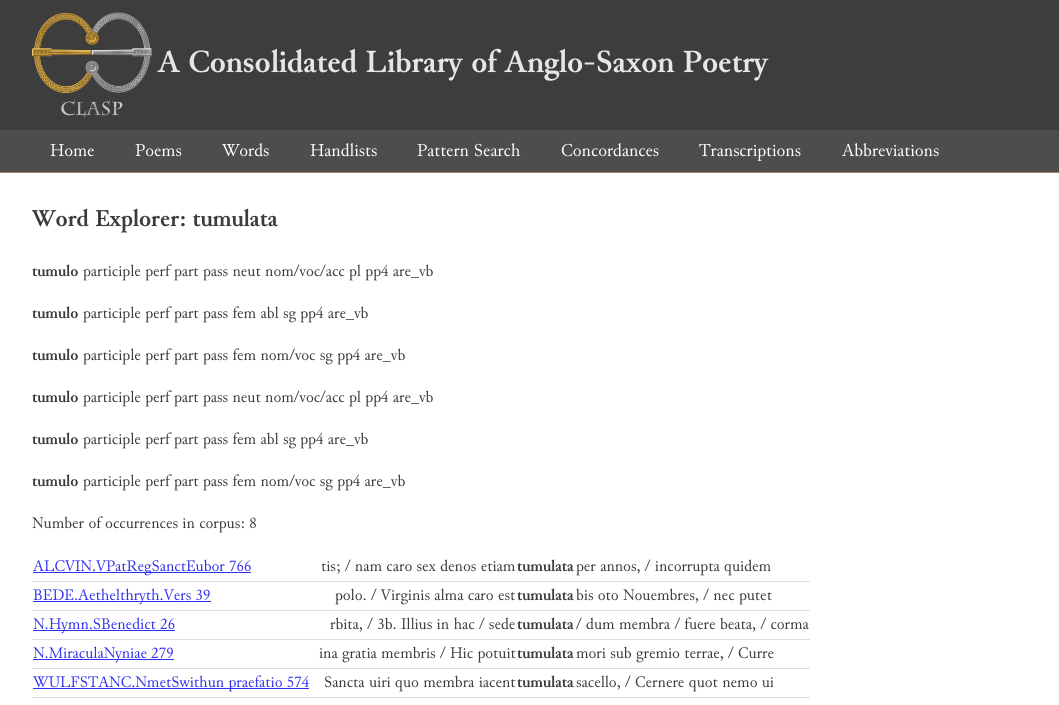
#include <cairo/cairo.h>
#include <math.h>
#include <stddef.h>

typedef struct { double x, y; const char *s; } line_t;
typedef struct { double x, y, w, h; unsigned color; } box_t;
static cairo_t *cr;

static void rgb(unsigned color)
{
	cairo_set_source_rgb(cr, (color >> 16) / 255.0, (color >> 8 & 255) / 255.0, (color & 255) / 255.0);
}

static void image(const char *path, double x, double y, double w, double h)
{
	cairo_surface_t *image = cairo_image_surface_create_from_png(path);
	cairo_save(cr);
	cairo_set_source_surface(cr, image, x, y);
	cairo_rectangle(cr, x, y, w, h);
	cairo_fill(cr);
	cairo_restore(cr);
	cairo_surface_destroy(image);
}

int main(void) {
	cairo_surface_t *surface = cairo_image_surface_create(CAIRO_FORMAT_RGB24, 1059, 705);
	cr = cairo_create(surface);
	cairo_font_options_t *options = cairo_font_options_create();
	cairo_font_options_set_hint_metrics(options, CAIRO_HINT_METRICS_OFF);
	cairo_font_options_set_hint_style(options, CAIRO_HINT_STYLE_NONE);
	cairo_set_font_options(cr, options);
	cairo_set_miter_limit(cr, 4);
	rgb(0xffffff);
	cairo_paint(cr);
	rgb(0x3d3d3d);
	cairo_rectangle(cr, 0, 0, 1059, 130);
	cairo_fill(cr);
	image("img/1.png", 32, 12, 120, 106);
	{
		static const box_t items[] = {
			{0, 130, 1059, 42, 0x4d4d4d},
			{0, 172, 1059, 1, 0x9c7e68},
			{33, 572, 218, 1, 0x3030f0},
			{32, 581, 778, 1, 0xdddddd},
			{33, 601, 178, 1, 0x3030f0},
			{32, 610, 778, 1, 0xdddddd},
			{33, 630, 142, 1, 0x3030f0},
			{32, 639, 778, 1, 0xdddddd},
			{33, 659, 141, 1, 0x3030f0},
			{32, 668, 778, 1, 0xdddddd},
			{33, 688, 276, 1, 0x3030f0},
			{32, 697, 778, 1, 0xdddddd},
		};
		for (size_t i = 0; i < sizeof items / sizeof *items; i++) {
			rgb(items[i].color);
			cairo_rectangle(cr, items[i].x, items[i].y, items[i].w, items[i].h);
			cairo_fill(cr);
		}
	}
	cairo_select_font_face(cr, "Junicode", CAIRO_FONT_SLANT_NORMAL, CAIRO_FONT_WEIGHT_BOLD);
	cairo_set_font_size(cr, 32);
	rgb(0xe6e6e6);
	cairo_move_to(cr, 158, 72);
	cairo_show_text(cr, "A Consolidated Library of Anglo-Saxon Poetry");
	cairo_select_font_face(cr, "Junicode", CAIRO_FONT_SLANT_NORMAL, CAIRO_FONT_WEIGHT_NORMAL);
	cairo_set_font_size(cr, 18);
	rgb(0xffffff);
	{
		static const line_t items[] = {
			{50, 156, "Home"},
			{135, 156, "Poems"},
			{222, 156, "Words"},
			{310, 156, "Handlists"},
			{417, 156, "Pattern Search"},
			{561, 156, "Concordances"},
			{699, 156, "Transcriptions"},
			{842, 156, "Abbreviations"},
		};
		for (size_t i = 0; i < sizeof items / sizeof *items; i++) {
			cairo_move_to(cr, items[i].x, items[i].y);
			cairo_show_text(cr, items[i].s);
		}
	}
	cairo_select_font_face(cr, "Junicode", CAIRO_FONT_SLANT_NORMAL, CAIRO_FONT_WEIGHT_BOLD);
	cairo_set_font_size(cr, 24);
	rgb(0x3b3b3b);
	cairo_move_to(cr, 32, 226);
	cairo_show_text(cr, "Word Explorer: tumulata");
	cairo_set_font_size(cr, 16);
	cairo_move_to(cr, 32, 276);
	cairo_show_text(cr, "tumulo");
	cairo_select_font_face(cr, "Junicode", CAIRO_FONT_SLANT_NORMAL, CAIRO_FONT_WEIGHT_NORMAL);
	cairo_move_to(cr, 83, 276);
	cairo_show_text(cr, "participle perf part pass neut nom/voc/acc pl pp4 are_vb");
	cairo_select_font_face(cr, "Junicode", CAIRO_FONT_SLANT_NORMAL, CAIRO_FONT_WEIGHT_BOLD);
	cairo_move_to(cr, 32, 318);
	cairo_show_text(cr, "tumulo");
	cairo_select_font_face(cr, "Junicode", CAIRO_FONT_SLANT_NORMAL, CAIRO_FONT_WEIGHT_NORMAL);
	cairo_move_to(cr, 83, 318);
	cairo_show_text(cr, "participle perf part pass fem abl sg pp4 are_vb");
	cairo_select_font_face(cr, "Junicode", CAIRO_FONT_SLANT_NORMAL, CAIRO_FONT_WEIGHT_BOLD);
	cairo_move_to(cr, 32, 360);
	cairo_show_text(cr, "tumulo");
	cairo_select_font_face(cr, "Junicode", CAIRO_FONT_SLANT_NORMAL, CAIRO_FONT_WEIGHT_NORMAL);
	cairo_move_to(cr, 83, 360);
	cairo_show_text(cr, "participle perf part pass fem nom/voc sg pp4 are_vb");
	cairo_select_font_face(cr, "Junicode", CAIRO_FONT_SLANT_NORMAL, CAIRO_FONT_WEIGHT_BOLD);
	cairo_move_to(cr, 32, 402);
	cairo_show_text(cr, "tumulo");
	cairo_select_font_face(cr, "Junicode", CAIRO_FONT_SLANT_NORMAL, CAIRO_FONT_WEIGHT_NORMAL);
	cairo_move_to(cr, 83, 402);
	cairo_show_text(cr, "participle perf part pass neut nom/voc/acc pl pp4 are_vb");
	cairo_select_font_face(cr, "Junicode", CAIRO_FONT_SLANT_NORMAL, CAIRO_FONT_WEIGHT_BOLD);
	cairo_move_to(cr, 32, 444);
	cairo_show_text(cr, "tumulo");
	cairo_select_font_face(cr, "Junicode", CAIRO_FONT_SLANT_NORMAL, CAIRO_FONT_WEIGHT_NORMAL);
	cairo_move_to(cr, 83, 444);
	cairo_show_text(cr, "participle perf part pass fem abl sg pp4 are_vb");
	cairo_select_font_face(cr, "Junicode", CAIRO_FONT_SLANT_NORMAL, CAIRO_FONT_WEIGHT_BOLD);
	cairo_move_to(cr, 32, 486);
	cairo_show_text(cr, "tumulo");
	cairo_select_font_face(cr, "Junicode", CAIRO_FONT_SLANT_NORMAL, CAIRO_FONT_WEIGHT_NORMAL);
	cairo_move_to(cr, 83, 486);
	cairo_show_text(cr, "participle perf part pass fem nom/voc sg pp4 are_vb");
	cairo_move_to(cr, 32, 528);
	cairo_show_text(cr, "Number of occurrences in corpus: 8");
	rgb(0x3030f0);
	cairo_move_to(cr, 33, 571);
	cairo_show_text(cr, "ALCVIN.VPatRegSanctEubor 766");
	rgb(0x3b3b3b);
	cairo_move_to(cr, 321, 571);
	cairo_show_text(cr, "tis; / nam caro sex denos etiam");
	cairo_select_font_face(cr, "Junicode", CAIRO_FONT_SLANT_NORMAL, CAIRO_FONT_WEIGHT_BOLD);
	cairo_move_to(cr, 517, 571);
	cairo_show_text(cr, "tumulata");
	cairo_select_font_face(cr, "Junicode", CAIRO_FONT_SLANT_NORMAL, CAIRO_FONT_WEIGHT_NORMAL);
	cairo_move_to(cr, 576, 571);
	cairo_show_text(cr, "per annos, / incorrupta quidem");
	rgb(0x3030f0);
	cairo_move_to(cr, 33, 600);
	cairo_show_text(cr, "BEDE.Aethelthryth.Vers 39");
	rgb(0x3b3b3b);
	cairo_move_to(cr, 335, 600);
	cairo_show_text(cr, "polo. / Virginis alma caro est");
	cairo_select_font_face(cr, "Junicode", CAIRO_FONT_SLANT_NORMAL, CAIRO_FONT_WEIGHT_BOLD);
	cairo_move_to(cr, 517, 600);
	cairo_show_text(cr, "tumulata");
	cairo_select_font_face(cr, "Junicode", CAIRO_FONT_SLANT_NORMAL, CAIRO_FONT_WEIGHT_NORMAL);
	cairo_move_to(cr, 576, 600);
	cairo_show_text(cr, "bis oto Nouembres, / nec putet");
	rgb(0x3030f0);
	cairo_move_to(cr, 33, 629);
	cairo_show_text(cr, "N.Hymn.SBenedict 26");
	rgb(0x3b3b3b);
	cairo_move_to(cr, 330, 629);
	cairo_show_text(cr, "rbita, / 3b. Illius in hac / sede");
	cairo_select_font_face(cr, "Junicode", CAIRO_FONT_SLANT_NORMAL, CAIRO_FONT_WEIGHT_BOLD);
	cairo_move_to(cr, 517, 629);
	cairo_show_text(cr, "tumulata");
	cairo_select_font_face(cr, "Junicode", CAIRO_FONT_SLANT_NORMAL, CAIRO_FONT_WEIGHT_NORMAL);
	cairo_move_to(cr, 576, 629);
	cairo_show_text(cr, "/ dum membra / fuere beata, / corma");
	rgb(0x3030f0);
	cairo_move_to(cr, 33, 658);
	cairo_show_text(cr, "N.MiraculaNyniae 279");
	rgb(0x3b3b3b);
	cairo_move_to(cr, 319, 658);
	cairo_show_text(cr, "ina gratia membris / Hic potuit");
	cairo_select_font_face(cr, "Junicode", CAIRO_FONT_SLANT_NORMAL, CAIRO_FONT_WEIGHT_BOLD);
	cairo_move_to(cr, 517, 658);
	cairo_show_text(cr, "tumulata");
	cairo_select_font_face(cr, "Junicode", CAIRO_FONT_SLANT_NORMAL, CAIRO_FONT_WEIGHT_NORMAL);
	cairo_move_to(cr, 576, 658);
	cairo_show_text(cr, "mori sub gremio terrae, / Curre");
	rgb(0x3030f0);
	cairo_move_to(cr, 33, 687);
	cairo_show_text(cr, "WULFSTANC.NmetSwithun praefatio 574");
	rgb(0x3b3b3b);
	cairo_move_to(cr, 324, 687);
	cairo_show_text(cr, "Sancta uiri quo membra iacent");
	cairo_select_font_face(cr, "Junicode", CAIRO_FONT_SLANT_NORMAL, CAIRO_FONT_WEIGHT_BOLD);
	cairo_move_to(cr, 517, 687);
	cairo_show_text(cr, "tumulata");
	cairo_select_font_face(cr, "Junicode", CAIRO_FONT_SLANT_NORMAL, CAIRO_FONT_WEIGHT_NORMAL);
	cairo_move_to(cr, 576, 687);
	cairo_show_text(cr, "sacello, / Cernere quot nemo ui");
	cairo_surface_write_to_png(surface, "page.png");
	cairo_font_options_destroy(options);
	cairo_destroy(cr);
	cairo_surface_destroy(surface);
	return 0;
}
